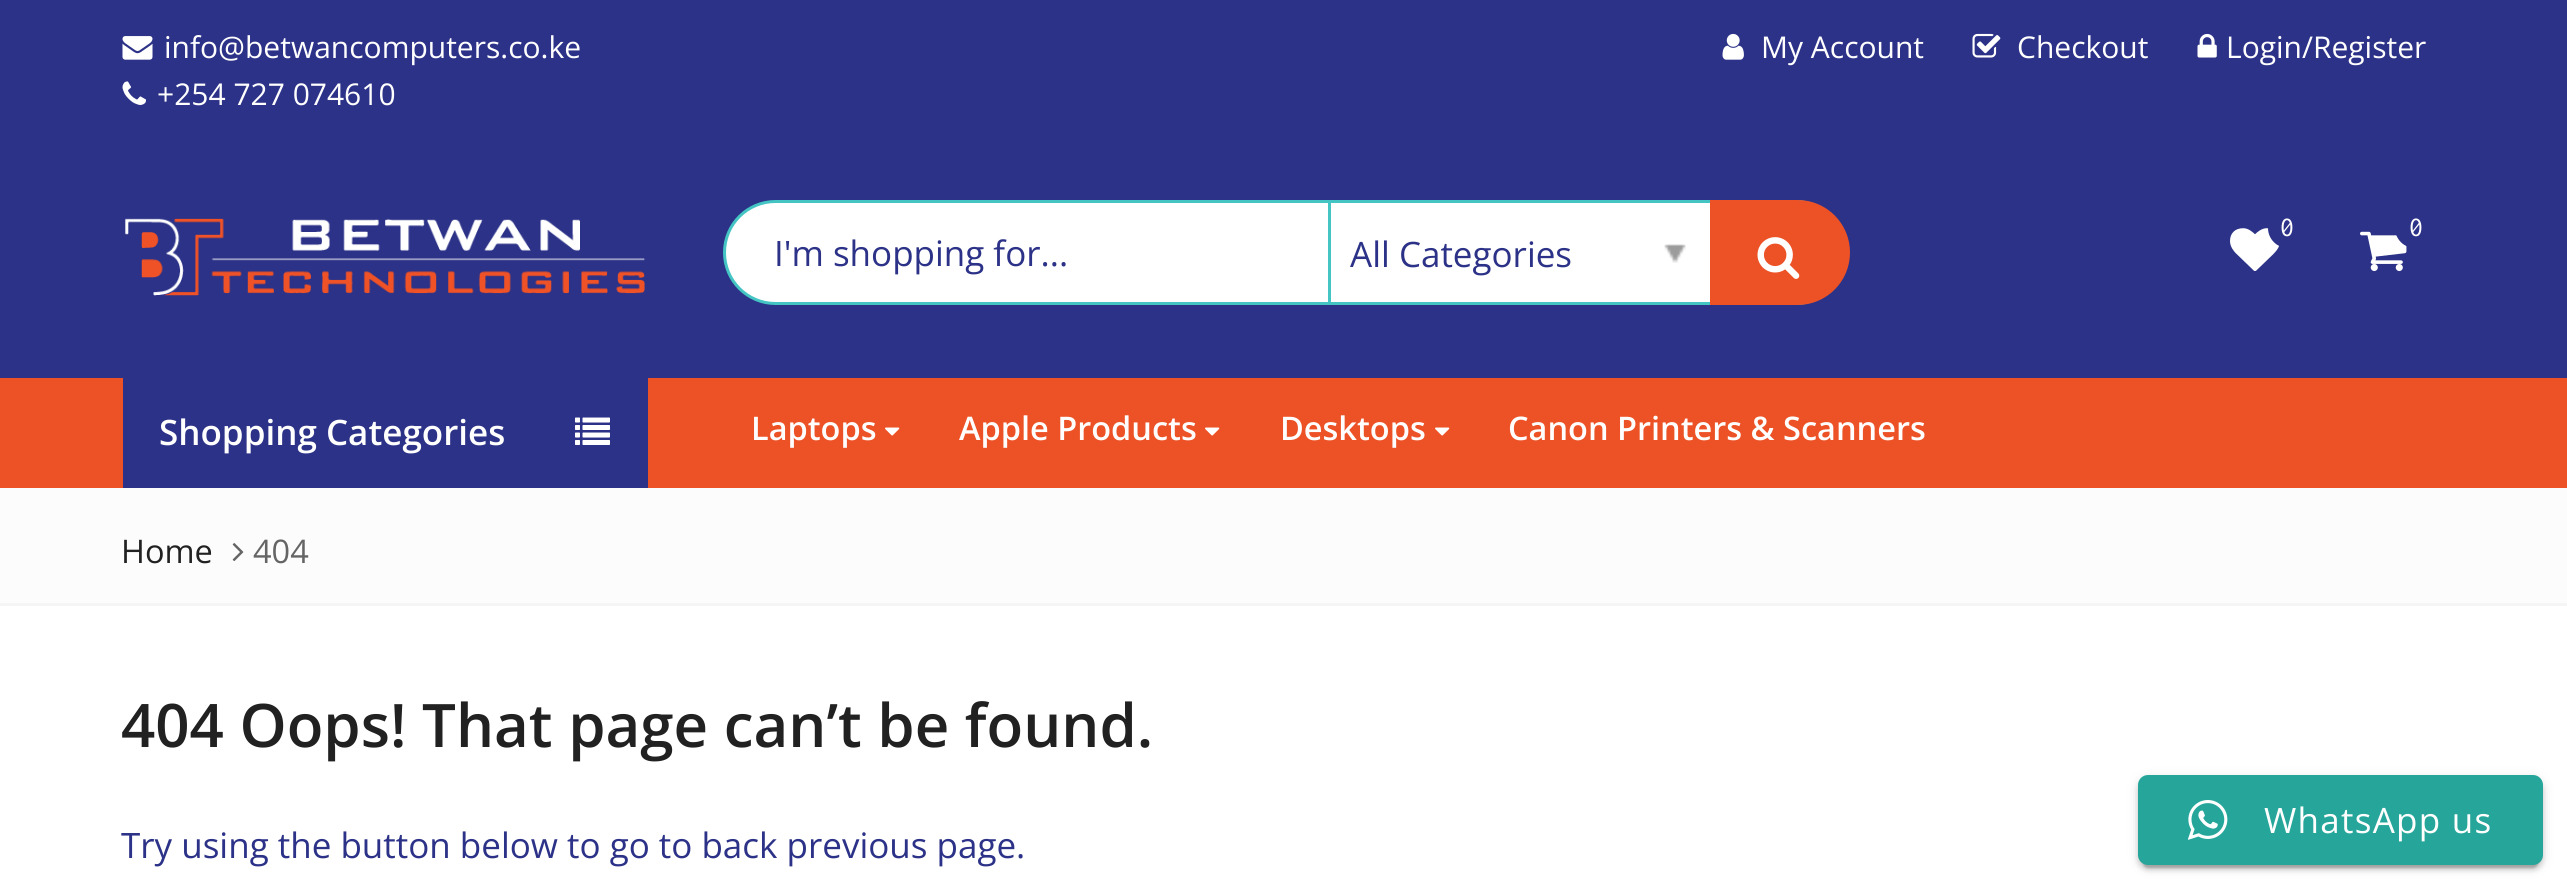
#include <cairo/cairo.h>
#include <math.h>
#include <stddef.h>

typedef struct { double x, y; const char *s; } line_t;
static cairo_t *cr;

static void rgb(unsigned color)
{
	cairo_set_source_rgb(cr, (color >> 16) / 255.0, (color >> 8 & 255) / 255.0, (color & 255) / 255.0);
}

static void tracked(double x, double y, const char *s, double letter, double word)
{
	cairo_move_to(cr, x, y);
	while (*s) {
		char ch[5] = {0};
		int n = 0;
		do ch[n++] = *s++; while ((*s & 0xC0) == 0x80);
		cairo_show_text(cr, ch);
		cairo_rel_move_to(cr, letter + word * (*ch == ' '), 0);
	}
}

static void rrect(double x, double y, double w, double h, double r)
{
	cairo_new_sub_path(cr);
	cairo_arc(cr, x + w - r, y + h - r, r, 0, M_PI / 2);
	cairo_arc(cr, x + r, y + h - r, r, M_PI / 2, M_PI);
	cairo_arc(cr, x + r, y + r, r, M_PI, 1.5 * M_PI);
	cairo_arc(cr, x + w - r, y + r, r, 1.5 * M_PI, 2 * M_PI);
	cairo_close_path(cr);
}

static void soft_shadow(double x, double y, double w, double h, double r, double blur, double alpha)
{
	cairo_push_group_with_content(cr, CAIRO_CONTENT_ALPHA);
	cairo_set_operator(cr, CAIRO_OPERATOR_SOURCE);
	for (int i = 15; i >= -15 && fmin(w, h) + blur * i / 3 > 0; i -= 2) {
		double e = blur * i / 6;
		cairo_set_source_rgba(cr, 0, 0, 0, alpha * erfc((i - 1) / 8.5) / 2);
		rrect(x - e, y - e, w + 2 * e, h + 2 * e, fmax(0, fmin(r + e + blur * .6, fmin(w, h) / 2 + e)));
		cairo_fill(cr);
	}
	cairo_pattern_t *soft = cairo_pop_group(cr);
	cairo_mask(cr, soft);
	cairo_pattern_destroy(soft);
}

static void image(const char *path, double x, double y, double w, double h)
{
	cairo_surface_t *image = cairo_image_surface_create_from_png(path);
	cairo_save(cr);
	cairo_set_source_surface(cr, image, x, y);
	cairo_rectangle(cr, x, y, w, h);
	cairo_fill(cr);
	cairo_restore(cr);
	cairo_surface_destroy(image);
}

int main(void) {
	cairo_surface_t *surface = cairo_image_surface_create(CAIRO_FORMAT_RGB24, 2567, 888);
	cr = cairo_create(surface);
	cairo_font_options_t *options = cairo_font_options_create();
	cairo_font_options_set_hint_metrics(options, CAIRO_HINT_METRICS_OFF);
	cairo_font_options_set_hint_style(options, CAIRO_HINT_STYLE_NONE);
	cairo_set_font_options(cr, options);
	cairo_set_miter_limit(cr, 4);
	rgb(0xffffff);
	cairo_paint(cr);
	rgb(0xfcfcfc);
	cairo_rectangle(cr, 0, 488, 2567, 115);
	cairo_fill(cr);
	rgb(0x2c3287);
	cairo_rectangle(cr, 0, 0, 2567, 378);
	cairo_fill(cr);
	image("img/1.png", 122, 36, 31, 24);
	image("img/2.png", 122, 81, 24, 24);
	image("img/3.png", 1722, 33, 22, 27);
	image("img/4.png", 1972, 33, 29, 25);
	image("img/5.png", 2197, 33, 20, 25);
	image("img/6.png", 125, 218, 520, 78);
	image("img/7.png", 2230, 228, 50, 43);
	cairo_arc(cr, 2288, 228, 20, 0, 2 * M_PI);
	cairo_fill(cr);
	image("img/8.png", 2360, 231, 47, 41);
	cairo_arc(cr, 2415, 228, 20, 0, 2 * M_PI);
	cairo_fill(cr);
	rgb(0xffffff);
	rrect(724.5, 201.5, 1122, 102, 51);
	cairo_fill_preserve(cr);
	rgb(0x45c4c4);
	cairo_set_line_width(cr, 3);
	cairo_stroke(cr);
	cairo_rectangle(cr, 1328, 203, 3, 100);
	cairo_fill(cr);
	image("img/9.png", 1664, 244, 22, 19);
	rgb(0xed5226);
	cairo_new_path(cr);
	cairo_move_to(cr, 1710, 200);
	cairo_line_to(cr, 1797.5, 200);
	cairo_curve_to(cr, 1826.5, 200, 1850, 223.5, 1850, 252.5);
	cairo_curve_to(cr, 1850, 281.5, 1826.5, 305, 1797.5, 305);
	cairo_line_to(cr, 1710, 305);
	cairo_close_path(cr);
	cairo_fill(cr);
	image("img/10.png", 1757, 237, 43, 42);
	cairo_rectangle(cr, 0, 378, 2567, 110);
	cairo_fill(cr);
	rgb(0x2c3287);
	cairo_rectangle(cr, 123, 378, 525, 110);
	cairo_fill(cr);
	image("img/11.png", 575, 417, 35, 28);
	image("img/12.png", 885, 427, 15, 9);
	image("img/12.png", 1205, 427, 15, 9);
	image("img/12.png", 1435, 427, 15, 9);
	rgb(0xf5f5f5);
	cairo_rectangle(cr, 0, 603, 2567, 3);
	cairo_fill(cr);
	image("img/13.png", 232, 543, 12, 18);
	rgb(0x000000);
	soft_shadow(2143, 788, 395, 80, 5, 1, 0.2);
	soft_shadow(2138, 778, 405, 90, 10, 6, 0.12);
	soft_shadow(2138, 780, 405, 90, 10, 2.5, 0.14);
	rgb(0x26a69a);
	rrect(2138, 775, 405, 90, 10);
	cairo_fill(cr);
	image("img/14.png", 2188, 800, 40, 40);
	cairo_select_font_face(cr, "Open Sans", CAIRO_FONT_SLANT_NORMAL, CAIRO_FONT_WEIGHT_NORMAL);
	cairo_set_font_size(cr, 30);
	rgb(0xffffff);
	{
		static const line_t items[] = {
			{164, 58, "info@betwancomputers.co.ke"},
			{157, 105, "+254 727 074610"},
			{1761, 58, "My Account"},
			{2017, 58, "Checkout"},
			{2226, 58, "Login/Register"},
		};
		for (size_t i = 0; i < sizeof items / sizeof *items; i++) {
			cairo_move_to(cr, items[i].x, items[i].y);
			cairo_show_text(cr, items[i].s);
		}
	}
	cairo_select_font_face(cr, "Inconsolata", CAIRO_FONT_SLANT_NORMAL, CAIRO_FONT_WEIGHT_NORMAL);
	cairo_set_font_size(cr, 28);
	cairo_move_to(cr, 2280, 236);
	cairo_show_text(cr, "0");
	cairo_move_to(cr, 2409, 236);
	cairo_show_text(cr, "0");
	cairo_select_font_face(cr, "Open Sans", CAIRO_FONT_SLANT_NORMAL, CAIRO_FONT_WEIGHT_NORMAL);
	cairo_set_font_size(cr, 35);
	rgb(0x2c3287);
	cairo_move_to(cr, 774, 266);
	cairo_show_text(cr, "I'm shopping for...");
	cairo_move_to(cr, 1350, 267);
	cairo_show_text(cr, "All Categories");
	cairo_select_font_face(cr, "Open Sans SemiBold", CAIRO_FONT_SLANT_NORMAL, CAIRO_FONT_WEIGHT_NORMAL);
	rgb(0xffffff);
	cairo_move_to(cr, 159, 445);
	cairo_show_text(cr, "Shopping Categories");
	cairo_set_font_size(cr, 32.5);
	{
		static const line_t items[] = {
			{751, 440, "Laptops"},
			{959, 440, "Apple Products"},
			{1280, 440, "Desktops"},
			{1508, 440, "Canon Printers & Scanners"},
		};
		for (size_t i = 0; i < sizeof items / sizeof *items; i++) {
			cairo_move_to(cr, items[i].x, items[i].y);
			cairo_show_text(cr, items[i].s);
		}
	}
	cairo_select_font_face(cr, "Open Sans", CAIRO_FONT_SLANT_NORMAL, CAIRO_FONT_WEIGHT_NORMAL);
	rgb(0x212121);
	cairo_move_to(cr, 121, 563);
	cairo_show_text(cr, "Home");
	rgb(0x656565);
	cairo_move_to(cr, 253, 563);
	cairo_show_text(cr, "404");
	cairo_select_font_face(cr, "Open Sans SemiBold", CAIRO_FONT_SLANT_NORMAL, CAIRO_FONT_WEIGHT_NORMAL);
	cairo_set_font_size(cr, 60);
	rgb(0x212121);
	cairo_move_to(cr, 121, 747);
	cairo_show_text(cr, "404 Oops! That page can’t be found.");
	cairo_select_font_face(cr, "Open Sans", CAIRO_FONT_SLANT_NORMAL, CAIRO_FONT_WEIGHT_NORMAL);
	cairo_set_font_size(cr, 35);
	rgb(0x2c3287);
	cairo_move_to(cr, 121, 858);
	cairo_show_text(cr, "Try using the button below to go to back previous page.");
	rgb(0xffffff);
	tracked(2264, 833, "WhatsApp us", 1.25, 0);
	cairo_surface_write_to_png(surface, "page.png");
	cairo_font_options_destroy(options);
	cairo_destroy(cr);
	cairo_surface_destroy(surface);
	return 0;
}
